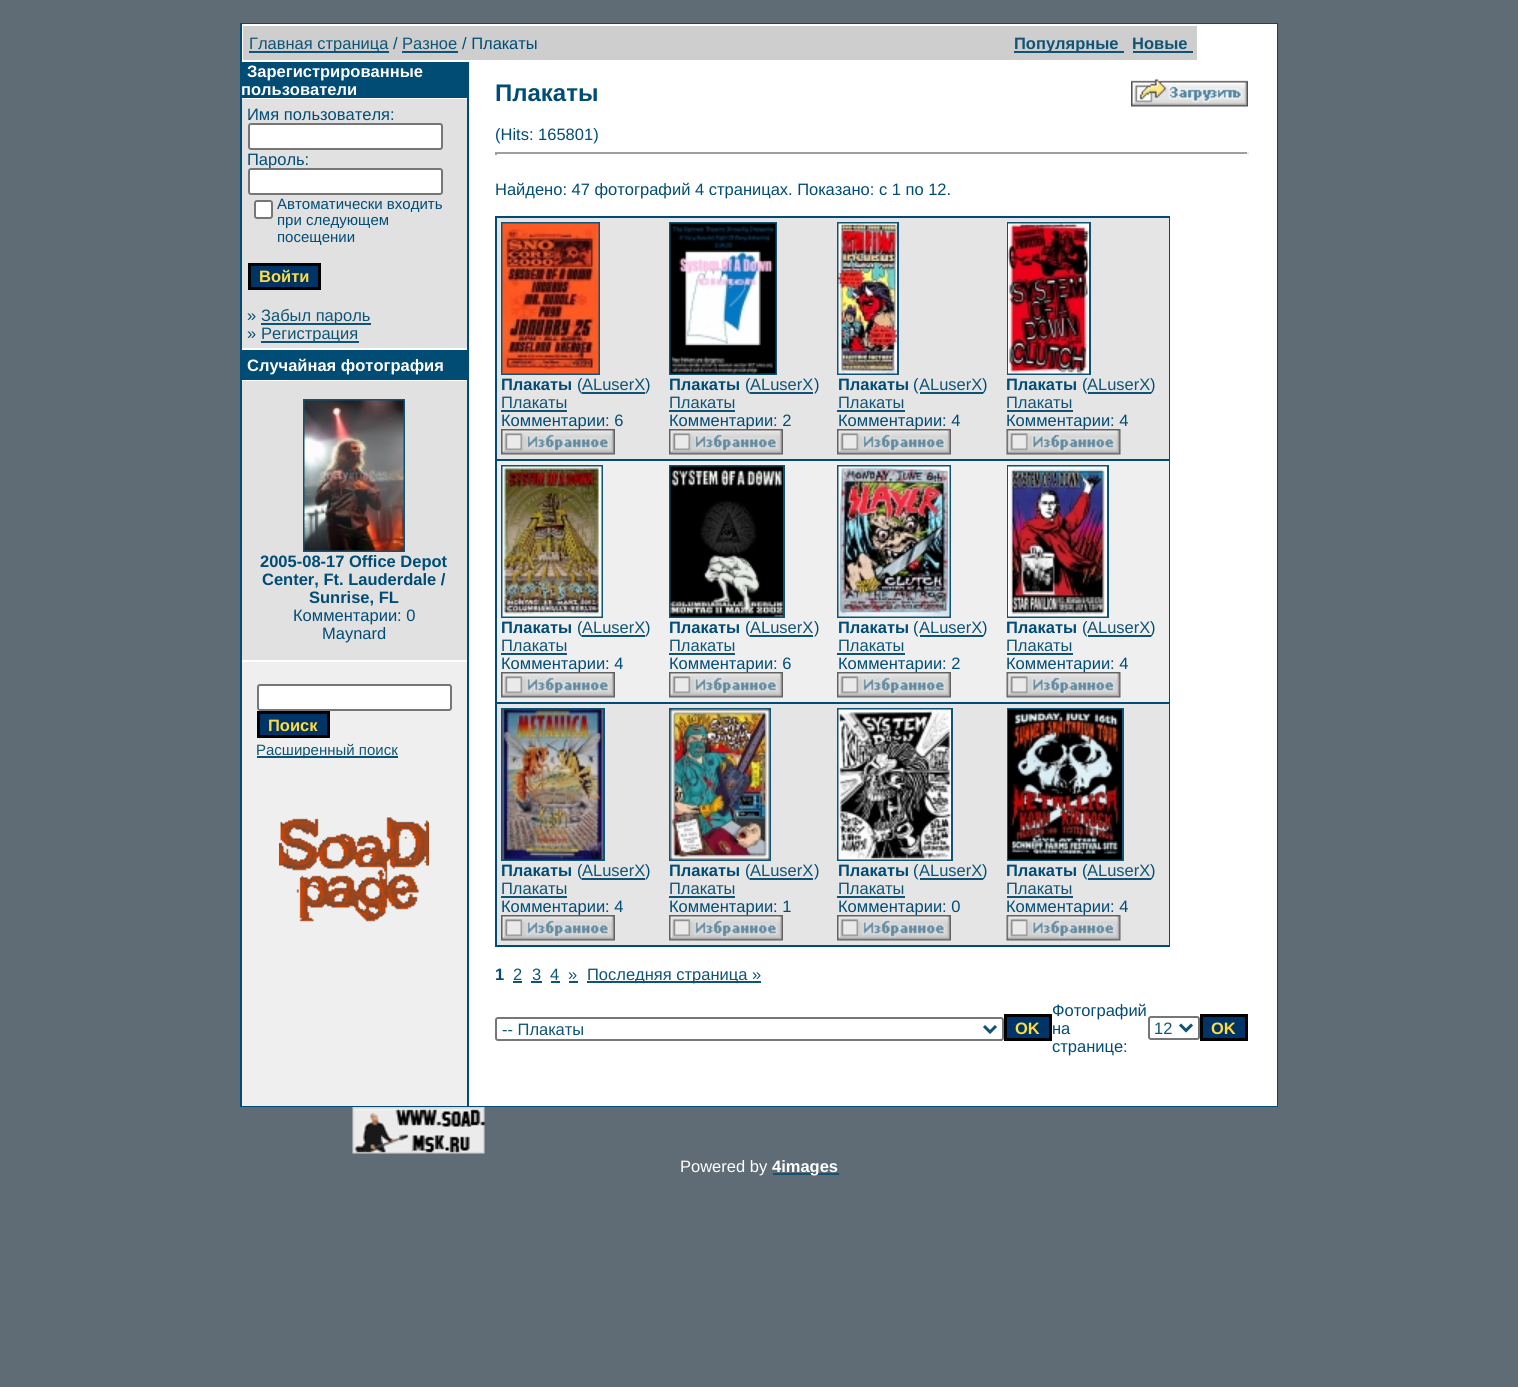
#include <cairo/cairo.h>
#include <math.h>
#include <stddef.h>

typedef struct { double x, y; const char *s; } line_t;
typedef struct { double x, y, w, h; unsigned color; } box_t;
static cairo_t *cr;

static void rgb(unsigned color)
{
	cairo_set_source_rgb(cr, (color >> 16) / 255.0, (color >> 8 & 255) / 255.0, (color & 255) / 255.0);
}

static void rrect(double x, double y, double w, double h, double r)
{
	cairo_new_sub_path(cr);
	cairo_arc(cr, x + w - r, y + h - r, r, 0, M_PI / 2);
	cairo_arc(cr, x + r, y + h - r, r, M_PI / 2, M_PI);
	cairo_arc(cr, x + r, y + r, r, M_PI, 1.5 * M_PI);
	cairo_arc(cr, x + w - r, y + r, r, 1.5 * M_PI, 2 * M_PI);
	cairo_close_path(cr);
}

static void image(const char *path, double x, double y, double w, double h)
{
	cairo_surface_t *image = cairo_image_surface_create_from_png(path);
	cairo_save(cr);
	cairo_set_source_surface(cr, image, x, y);
	cairo_rectangle(cr, x, y, w, h);
	cairo_fill(cr);
	cairo_restore(cr);
	cairo_surface_destroy(image);
}

int main(void) {
	cairo_surface_t *surface = cairo_image_surface_create(CAIRO_FORMAT_RGB24, 1518, 1387);
	cr = cairo_create(surface);
	cairo_font_options_t *options = cairo_font_options_create();
	cairo_font_options_set_hint_metrics(options, CAIRO_HINT_METRICS_OFF);
	cairo_font_options_set_hint_style(options, CAIRO_HINT_STYLE_NONE);
	cairo_set_font_options(cr, options);
	cairo_set_miter_limit(cr, 4);
	rgb(0x5f6c76);
	cairo_paint(cr);
	{
		static const box_t items[] = {
			{240, 23, 1038, 1084, 0x004c75},
			{242, 24, 1035, 1082, 0xffffff},
			{243, 26, 954, 34, 0xcecece},
			{249, 51, 140, 2, 0x0f5475},
			{402, 51, 56, 2, 0x0f5475},
			{1014, 51, 110, 2, 0x0f5475},
			{1133, 51, 60, 2, 0x0f5475},
			{242, 662, 225, 444, 0xefefef},
			{242, 62, 225, 36, 0x004c75},
			{242, 99, 225, 249, 0xe1e1e1},
		};
		for (size_t i = 0; i < sizeof items / sizeof *items; i++) {
			rgb(items[i].color);
			cairo_rectangle(cr, items[i].x, items[i].y, items[i].w, items[i].h);
			cairo_fill(cr);
		}
	}
	rgb(0xffffff);
	rrect(249, 124, 193, 25, 2);
	cairo_fill_preserve(cr);
	rgb(0x767676);
	cairo_stroke(cr);
	rgb(0xffffff);
	rrect(255, 201, 17, 17, 2);
	cairo_fill_preserve(cr);
	rgb(0x767676);
	cairo_stroke(cr);
	rgb(0x003366);
	cairo_rectangle(cr, 249.5, 264.5, 70, 24);
	cairo_fill_preserve(cr);
	rgb(0x000000);
	cairo_set_line_width(cr, 3);
	cairo_stroke(cr);
	{
		static const box_t items[] = {
			{261, 323, 110, 2, 0x0f5475},
			{261, 341, 98, 2, 0x0f5475},
			{242, 350, 225, 30, 0x004c75},
			{242, 381, 225, 279, 0xe1e1e1},
		};
		for (size_t i = 0; i < sizeof items / sizeof *items; i++) {
			rgb(items[i].color);
			cairo_rectangle(cr, items[i].x, items[i].y, items[i].w, items[i].h);
			cairo_fill(cr);
		}
	}
	cairo_rectangle(cr, 304, 400, 100, 151);
	rgb(0x0f5475);
	cairo_set_line_width(cr, 2);
	cairo_stroke(cr);
	image("img/1.png", 304, 400, 100, 151);
	rgb(0xffffff);
	rrect(258, 685, 193, 25, 2);
	cairo_fill_preserve(cr);
	rgb(0x767676);
	cairo_stroke(cr);
	rgb(0x003366);
	cairo_rectangle(cr, 258.5, 712.5, 70, 24);
	cairo_fill_preserve(cr);
	rgb(0x000000);
	cairo_set_line_width(cr, 3);
	cairo_stroke(cr);
	rgb(0x0f5475);
	cairo_rectangle(cr, 257, 756, 141, 2);
	cairo_fill(cr);
	image("img/2.png", 279, 817, 150, 105);
	rgb(0x004c75);
	cairo_rectangle(cr, 467, 62, 2, 1044);
	cairo_fill(cr);
	image("img/3.png", 1131, 79, 117, 28);
	{
		static const box_t items[] = {
			{495, 152, 753, 2, 0x9f9f9f},
			{1247, 152, 2, 3, 0xeeeeee},
			{495, 152, 2, 3, 0x9f9f9f},
			{495, 216, 675, 731, 0x004c75},
			{497, 218, 672, 241, 0xe5e5e5},
		};
		for (size_t i = 0; i < sizeof items / sizeof *items; i++) {
			rgb(items[i].color);
			cairo_rectangle(cr, items[i].x, items[i].y, items[i].w, items[i].h);
			cairo_fill(cr);
		}
	}
	cairo_rectangle(cr, 502, 223, 97, 151);
	rgb(0x0f5475);
	cairo_set_line_width(cr, 2);
	cairo_stroke(cr);
	image("img/4.png", 502, 223, 97, 151);
	cairo_rectangle(cr, 582, 392, 63, 2);
	cairo_fill(cr);
	cairo_rectangle(cr, 501, 410, 66, 2);
	cairo_fill(cr);
	cairo_rectangle(cr, 670, 223, 106, 151);
	cairo_stroke(cr);
	image("img/6.png", 670, 223, 106, 151);
	cairo_rectangle(cr, 669, 410, 66, 2);
	cairo_fill(cr);
	cairo_rectangle(cr, 838, 223, 60, 151);
	cairo_stroke(cr);
	image("img/8.png", 838, 223, 59, 151);
	cairo_rectangle(cr, 920, 392, 63, 2);
	cairo_fill(cr);
	cairo_rectangle(cr, 837, 410, 68, 2);
	cairo_fill(cr);
	cairo_rectangle(cr, 1008, 223, 82, 151);
	cairo_stroke(cr);
	image("img/10.png", 1008, 223, 81, 151);
	{
		static const box_t items[] = {
			{1088, 392, 63, 2, 0x0f5475},
			{1007, 410, 66, 2, 0x0f5475},
			{497, 461, 672, 241, 0xefefef},
		};
		for (size_t i = 0; i < sizeof items / sizeof *items; i++) {
			rgb(items[i].color);
			cairo_rectangle(cr, items[i].x, items[i].y, items[i].w, items[i].h);
			cairo_fill(cr);
		}
	}
	cairo_rectangle(cr, 502, 466, 100, 151);
	rgb(0x0f5475);
	cairo_stroke(cr);
	image("img/12.png", 502, 466, 100, 151);
	cairo_rectangle(cr, 582, 635, 63, 2);
	cairo_fill(cr);
	cairo_rectangle(cr, 501, 653, 66, 2);
	cairo_fill(cr);
	cairo_rectangle(cr, 670, 466, 114, 151);
	cairo_stroke(cr);
	image("img/14.png", 670, 466, 113, 151);
	cairo_rectangle(cr, 669, 653, 66, 2);
	cairo_fill(cr);
	cairo_rectangle(cr, 838, 466, 112, 151);
	cairo_stroke(cr);
	image("img/16.png", 838, 466, 112, 151);
	cairo_rectangle(cr, 920, 635, 63, 2);
	cairo_fill(cr);
	cairo_rectangle(cr, 837, 653, 68, 2);
	cairo_fill(cr);
	cairo_rectangle(cr, 1008, 466, 100, 151);
	cairo_stroke(cr);
	image("img/18.png", 1008, 466, 99, 151);
	{
		static const box_t items[] = {
			{1088, 635, 63, 2, 0x0f5475},
			{1007, 653, 66, 2, 0x0f5475},
			{497, 704, 672, 241, 0xe5e5e5},
		};
		for (size_t i = 0; i < sizeof items / sizeof *items; i++) {
			rgb(items[i].color);
			cairo_rectangle(cr, items[i].x, items[i].y, items[i].w, items[i].h);
			cairo_fill(cr);
		}
	}
	cairo_rectangle(cr, 502, 709, 102, 151);
	rgb(0x0f5475);
	cairo_stroke(cr);
	image("img/20.png", 502, 709, 101, 151);
	cairo_rectangle(cr, 582, 878, 63, 2);
	cairo_fill(cr);
	cairo_rectangle(cr, 501, 896, 66, 2);
	cairo_fill(cr);
	cairo_rectangle(cr, 670, 709, 100, 151);
	cairo_stroke(cr);
	image("img/21.png", 670, 709, 100, 151);
	cairo_rectangle(cr, 669, 896, 66, 2);
	cairo_fill(cr);
	cairo_rectangle(cr, 838, 709, 114, 151);
	cairo_stroke(cr);
	image("img/22.png", 838, 709, 113, 151);
	cairo_rectangle(cr, 920, 878, 63, 2);
	cairo_fill(cr);
	cairo_rectangle(cr, 837, 896, 68, 2);
	cairo_fill(cr);
	cairo_rectangle(cr, 1008, 709, 115, 151);
	cairo_stroke(cr);
	image("img/23.png", 1008, 709, 114, 151);
	{
		static const box_t items[] = {
			{1088, 878, 63, 2, 0x0f5475},
			{1007, 896, 66, 2, 0x0f5475},
			{513, 981, 9, 2, 0x0f5475},
			{531, 981, 11, 2, 0x0f5475},
			{551, 981, 9, 2, 0x0f5475},
			{569, 981, 9, 2, 0x0f5475},
			{587, 981, 174, 2, 0x0f5475},
		};
		for (size_t i = 0; i < sizeof items / sizeof *items; i++) {
			rgb(items[i].color);
			cairo_rectangle(cr, items[i].x, items[i].y, items[i].w, items[i].h);
			cairo_fill(cr);
		}
	}
	rrect(496, 1018, 507, 22, 2);
	rgb(0x767676);
	cairo_stroke(cr);
	cairo_new_path(cr);
	cairo_move_to(cr, 984, 1026);
	cairo_line_to(cr, 990, 1032);
	cairo_line_to(cr, 996, 1026);
	rgb(0x0f5475);
	cairo_set_line_width(cr, 3);
	cairo_stroke(cr);
	rgb(0x003366);
	cairo_rectangle(cr, 1005.5, 1015.5, 45, 24);
	cairo_fill_preserve(cr);
	rgb(0x000000);
	cairo_stroke(cr);
	rrect(1149, 1017, 50, 22, 2);
	rgb(0x767676);
	cairo_set_line_width(cr, 2);
	cairo_stroke(cr);
	cairo_new_path(cr);
	cairo_move_to(cr, 1180, 1024.5);
	cairo_line_to(cr, 1186, 1030.5);
	cairo_line_to(cr, 1192, 1024.5);
	rgb(0x0f5475);
	cairo_set_line_width(cr, 3);
	cairo_stroke(cr);
	rgb(0x003366);
	cairo_rectangle(cr, 1201.5, 1015.5, 45, 24);
	cairo_fill_preserve(cr);
	rgb(0x000000);
	cairo_stroke(cr);
	image("img/24.png", 352, 1107, 133, 47);
	rgb(0x0f5475);
	cairo_rectangle(cr, 773, 1173, 66, 2);
	cairo_fill(cr);
	cairo_select_font_face(cr, "Liberation Sans", CAIRO_FONT_SLANT_NORMAL, CAIRO_FONT_WEIGHT_NORMAL);
	cairo_set_font_size(cr, 16.5);
	cairo_move_to(cr, 249, 49);
	cairo_show_text(cr, "Главная страница");
	rgb(0x004c75);
	cairo_move_to(cr, 393, 49);
	cairo_show_text(cr, "/");
	rgb(0x0f5475);
	cairo_move_to(cr, 402, 49);
	cairo_show_text(cr, "Разное");
	rgb(0x004c75);
	cairo_move_to(cr, 462, 49);
	cairo_show_text(cr, "/ Плакаты");
	cairo_select_font_face(cr, "Liberation Sans", CAIRO_FONT_SLANT_NORMAL, CAIRO_FONT_WEIGHT_BOLD);
	rgb(0x0f5475);
	cairo_move_to(cr, 1014, 49);
	cairo_show_text(cr, "Популярные");
	cairo_move_to(cr, 1132, 49);
	cairo_show_text(cr, "Новые");
	rgb(0xffffff);
	cairo_move_to(cr, 247, 77);
	cairo_show_text(cr, "Зарегистрированные");
	cairo_move_to(cr, 241, 95);
	cairo_show_text(cr, "пользователи");
	cairo_select_font_face(cr, "Liberation Sans", CAIRO_FONT_SLANT_NORMAL, CAIRO_FONT_WEIGHT_NORMAL);
	rgb(0x004c75);
	cairo_move_to(cr, 247, 120);
	cairo_show_text(cr, "Имя пользователя:");
	cairo_move_to(cr, 247, 165);
	cairo_show_text(cr, "Пароль:");
	rgb(0xffffff);
	rrect(249, 169, 193, 25, 2);
	cairo_fill_preserve(cr);
	rgb(0x767676);
	cairo_set_line_width(cr, 2);
	cairo_stroke(cr);
	cairo_set_font_size(cr, 15);
	rgb(0x004c75);
	{
		static const line_t items[] = {
			{277, 209, "Автоматически входить"},
			{277, 225, "при следующем"},
			{277, 242, "посещении"},
		};
		for (size_t i = 0; i < sizeof items / sizeof *items; i++) {
			cairo_move_to(cr, items[i].x, items[i].y);
			cairo_show_text(cr, items[i].s);
		}
	}
	cairo_select_font_face(cr, "Liberation Sans", CAIRO_FONT_SLANT_NORMAL, CAIRO_FONT_WEIGHT_BOLD);
	cairo_set_font_size(cr, 16.5);
	rgb(0xfcdc43);
	cairo_move_to(cr, 259, 282);
	cairo_show_text(cr, "Войти");
	cairo_select_font_face(cr, "Liberation Sans", CAIRO_FONT_SLANT_NORMAL, CAIRO_FONT_WEIGHT_NORMAL);
	rgb(0x004c75);
	cairo_move_to(cr, 247, 321);
	cairo_show_text(cr, "»");
	rgb(0x0f5475);
	cairo_move_to(cr, 261, 321);
	cairo_show_text(cr, "Забыл пароль");
	rgb(0x004c75);
	cairo_move_to(cr, 247, 339);
	cairo_show_text(cr, "»");
	rgb(0x0f5475);
	cairo_move_to(cr, 261, 339);
	cairo_show_text(cr, "Регистрация");
	cairo_select_font_face(cr, "Liberation Sans", CAIRO_FONT_SLANT_NORMAL, CAIRO_FONT_WEIGHT_BOLD);
	rgb(0xffffff);
	cairo_move_to(cr, 247, 371);
	cairo_show_text(cr, "Случайная фотография");
	rgb(0x004c75);
	{
		static const line_t items[] = {
			{260, 567, "2005-08-17 Office Depot"},
			{262, 585, "Center, Ft. Lauderdale /"},
			{309, 603, "Sunrise, FL"},
		};
		for (size_t i = 0; i < sizeof items / sizeof *items; i++) {
			cairo_move_to(cr, items[i].x, items[i].y);
			cairo_show_text(cr, items[i].s);
		}
	}
	cairo_select_font_face(cr, "Liberation Sans", CAIRO_FONT_SLANT_NORMAL, CAIRO_FONT_WEIGHT_NORMAL);
	cairo_move_to(cr, 293, 621);
	cairo_show_text(cr, "Комментарии: 0");
	cairo_move_to(cr, 322, 639);
	cairo_show_text(cr, "Maynard");
	cairo_select_font_face(cr, "Liberation Sans", CAIRO_FONT_SLANT_NORMAL, CAIRO_FONT_WEIGHT_BOLD);
	rgb(0xfcdc43);
	cairo_move_to(cr, 268, 731);
	cairo_show_text(cr, "Поиск");
	cairo_select_font_face(cr, "Liberation Sans", CAIRO_FONT_SLANT_NORMAL, CAIRO_FONT_WEIGHT_NORMAL);
	cairo_set_font_size(cr, 15);
	rgb(0x0f5475);
	cairo_move_to(cr, 256, 755);
	cairo_show_text(cr, "Расширенный поиск");
	cairo_select_font_face(cr, "Liberation Sans", CAIRO_FONT_SLANT_NORMAL, CAIRO_FONT_WEIGHT_BOLD);
	cairo_set_font_size(cr, 24);
	rgb(0x004c75);
	cairo_move_to(cr, 495, 101);
	cairo_show_text(cr, "Плакаты");
	cairo_select_font_face(cr, "Liberation Sans", CAIRO_FONT_SLANT_NORMAL, CAIRO_FONT_WEIGHT_NORMAL);
	cairo_set_font_size(cr, 16.5);
	cairo_move_to(cr, 495, 140);
	cairo_show_text(cr, "(Hits: 165801)");
	cairo_move_to(cr, 495, 195);
	cairo_show_text(cr, "Найдено: 47 фотографий 4 страницах. Показано: с 1 по 12.");
	cairo_select_font_face(cr, "Liberation Sans", CAIRO_FONT_SLANT_NORMAL, CAIRO_FONT_WEIGHT_BOLD);
	cairo_move_to(cr, 501, 390);
	cairo_show_text(cr, "Плакаты");
	cairo_select_font_face(cr, "Liberation Sans", CAIRO_FONT_SLANT_NORMAL, CAIRO_FONT_WEIGHT_NORMAL);
	cairo_move_to(cr, 577, 390);
	cairo_show_text(cr, "(");
	rgb(0x0f5475);
	cairo_move_to(cr, 582, 390);
	cairo_show_text(cr, "ALuserX");
	rgb(0x004c75);
	cairo_move_to(cr, 645, 390);
	cairo_show_text(cr, ")");
	rgb(0x0f5475);
	cairo_move_to(cr, 501, 408);
	cairo_show_text(cr, "Плакаты");
	rgb(0x004c75);
	cairo_move_to(cr, 501, 426);
	cairo_show_text(cr, "Комментарии: 6");
	image("img/5.png", 501, 429, 114, 26);
	cairo_select_font_face(cr, "Liberation Sans", CAIRO_FONT_SLANT_NORMAL, CAIRO_FONT_WEIGHT_BOLD);
	cairo_move_to(cr, 669, 390);
	cairo_show_text(cr, "Плакаты");
	cairo_select_font_face(cr, "Liberation Sans", CAIRO_FONT_SLANT_NORMAL, CAIRO_FONT_WEIGHT_NORMAL);
	cairo_move_to(cr, 745, 390);
	cairo_show_text(cr, "(");
	rgb(0x0f5475);
	cairo_move_to(cr, 750, 390);
	cairo_show_text(cr, "ALuserX");
	cairo_rectangle(cr, 750, 392, 63, 2);
	cairo_fill(cr);
	rgb(0x004c75);
	cairo_move_to(cr, 814, 390);
	cairo_show_text(cr, ")");
	rgb(0x0f5475);
	cairo_move_to(cr, 669, 408);
	cairo_show_text(cr, "Плакаты");
	rgb(0x004c75);
	cairo_move_to(cr, 669, 426);
	cairo_show_text(cr, "Комментарии: 2");
	image("img/7.png", 669, 429, 114, 26);
	cairo_select_font_face(cr, "Liberation Sans", CAIRO_FONT_SLANT_NORMAL, CAIRO_FONT_WEIGHT_BOLD);
	cairo_move_to(cr, 838, 390);
	cairo_show_text(cr, "Плакаты");
	cairo_select_font_face(cr, "Liberation Sans", CAIRO_FONT_SLANT_NORMAL, CAIRO_FONT_WEIGHT_NORMAL);
	cairo_move_to(cr, 913, 390);
	cairo_show_text(cr, "(");
	rgb(0x0f5475);
	cairo_move_to(cr, 919, 390);
	cairo_show_text(cr, "ALuserX");
	rgb(0x004c75);
	cairo_move_to(cr, 982, 390);
	cairo_show_text(cr, ")");
	rgb(0x0f5475);
	cairo_move_to(cr, 838, 408);
	cairo_show_text(cr, "Плакаты");
	rgb(0x004c75);
	cairo_move_to(cr, 838, 426);
	cairo_show_text(cr, "Комментарии: 4");
	image("img/9.png", 837, 429, 114, 26);
	cairo_select_font_face(cr, "Liberation Sans", CAIRO_FONT_SLANT_NORMAL, CAIRO_FONT_WEIGHT_BOLD);
	cairo_move_to(cr, 1006, 390);
	cairo_show_text(cr, "Плакаты");
	cairo_select_font_face(cr, "Liberation Sans", CAIRO_FONT_SLANT_NORMAL, CAIRO_FONT_WEIGHT_NORMAL);
	cairo_move_to(cr, 1082, 390);
	cairo_show_text(cr, "(");
	rgb(0x0f5475);
	cairo_move_to(cr, 1087, 390);
	cairo_show_text(cr, "ALuserX");
	rgb(0x004c75);
	cairo_move_to(cr, 1150, 390);
	cairo_show_text(cr, ")");
	rgb(0x0f5475);
	cairo_move_to(cr, 1006, 408);
	cairo_show_text(cr, "Плакаты");
	rgb(0x004c75);
	cairo_move_to(cr, 1006, 426);
	cairo_show_text(cr, "Комментарии: 4");
	image("img/11.png", 1006, 429, 115, 26);
	cairo_select_font_face(cr, "Liberation Sans", CAIRO_FONT_SLANT_NORMAL, CAIRO_FONT_WEIGHT_BOLD);
	cairo_move_to(cr, 501, 633);
	cairo_show_text(cr, "Плакаты");
	cairo_select_font_face(cr, "Liberation Sans", CAIRO_FONT_SLANT_NORMAL, CAIRO_FONT_WEIGHT_NORMAL);
	cairo_move_to(cr, 577, 633);
	cairo_show_text(cr, "(");
	rgb(0x0f5475);
	cairo_move_to(cr, 582, 633);
	cairo_show_text(cr, "ALuserX");
	rgb(0x004c75);
	cairo_move_to(cr, 645, 633);
	cairo_show_text(cr, ")");
	rgb(0x0f5475);
	cairo_move_to(cr, 501, 651);
	cairo_show_text(cr, "Плакаты");
	rgb(0x004c75);
	cairo_move_to(cr, 501, 669);
	cairo_show_text(cr, "Комментарии: 4");
	image("img/13.png", 501, 672, 114, 26);
	cairo_select_font_face(cr, "Liberation Sans", CAIRO_FONT_SLANT_NORMAL, CAIRO_FONT_WEIGHT_BOLD);
	cairo_move_to(cr, 669, 633);
	cairo_show_text(cr, "Плакаты");
	cairo_select_font_face(cr, "Liberation Sans", CAIRO_FONT_SLANT_NORMAL, CAIRO_FONT_WEIGHT_NORMAL);
	cairo_move_to(cr, 745, 633);
	cairo_show_text(cr, "(");
	rgb(0x0f5475);
	cairo_move_to(cr, 750, 633);
	cairo_show_text(cr, "ALuserX");
	cairo_rectangle(cr, 750, 635, 63, 2);
	cairo_fill(cr);
	rgb(0x004c75);
	cairo_move_to(cr, 814, 633);
	cairo_show_text(cr, ")");
	rgb(0x0f5475);
	cairo_move_to(cr, 669, 651);
	cairo_show_text(cr, "Плакаты");
	rgb(0x004c75);
	cairo_move_to(cr, 669, 669);
	cairo_show_text(cr, "Комментарии: 6");
	image("img/15.png", 669, 672, 114, 26);
	cairo_select_font_face(cr, "Liberation Sans", CAIRO_FONT_SLANT_NORMAL, CAIRO_FONT_WEIGHT_BOLD);
	cairo_move_to(cr, 838, 633);
	cairo_show_text(cr, "Плакаты");
	cairo_select_font_face(cr, "Liberation Sans", CAIRO_FONT_SLANT_NORMAL, CAIRO_FONT_WEIGHT_NORMAL);
	cairo_move_to(cr, 913, 633);
	cairo_show_text(cr, "(");
	rgb(0x0f5475);
	cairo_move_to(cr, 919, 633);
	cairo_show_text(cr, "ALuserX");
	rgb(0x004c75);
	cairo_move_to(cr, 982, 633);
	cairo_show_text(cr, ")");
	rgb(0x0f5475);
	cairo_move_to(cr, 838, 651);
	cairo_show_text(cr, "Плакаты");
	rgb(0x004c75);
	cairo_move_to(cr, 838, 669);
	cairo_show_text(cr, "Комментарии: 2");
	image("img/17.png", 837, 672, 114, 26);
	cairo_select_font_face(cr, "Liberation Sans", CAIRO_FONT_SLANT_NORMAL, CAIRO_FONT_WEIGHT_BOLD);
	cairo_move_to(cr, 1006, 633);
	cairo_show_text(cr, "Плакаты");
	cairo_select_font_face(cr, "Liberation Sans", CAIRO_FONT_SLANT_NORMAL, CAIRO_FONT_WEIGHT_NORMAL);
	cairo_move_to(cr, 1082, 633);
	cairo_show_text(cr, "(");
	rgb(0x0f5475);
	cairo_move_to(cr, 1087, 633);
	cairo_show_text(cr, "ALuserX");
	rgb(0x004c75);
	cairo_move_to(cr, 1150, 633);
	cairo_show_text(cr, ")");
	rgb(0x0f5475);
	cairo_move_to(cr, 1006, 651);
	cairo_show_text(cr, "Плакаты");
	rgb(0x004c75);
	cairo_move_to(cr, 1006, 669);
	cairo_show_text(cr, "Комментарии: 4");
	image("img/19.png", 1006, 672, 115, 26);
	cairo_select_font_face(cr, "Liberation Sans", CAIRO_FONT_SLANT_NORMAL, CAIRO_FONT_WEIGHT_BOLD);
	cairo_move_to(cr, 501, 876);
	cairo_show_text(cr, "Плакаты");
	cairo_select_font_face(cr, "Liberation Sans", CAIRO_FONT_SLANT_NORMAL, CAIRO_FONT_WEIGHT_NORMAL);
	cairo_move_to(cr, 577, 876);
	cairo_show_text(cr, "(");
	rgb(0x0f5475);
	cairo_move_to(cr, 582, 876);
	cairo_show_text(cr, "ALuserX");
	rgb(0x004c75);
	cairo_move_to(cr, 645, 876);
	cairo_show_text(cr, ")");
	rgb(0x0f5475);
	cairo_move_to(cr, 501, 894);
	cairo_show_text(cr, "Плакаты");
	rgb(0x004c75);
	cairo_move_to(cr, 501, 912);
	cairo_show_text(cr, "Комментарии: 4");
	image("img/5.png", 501, 915, 114, 26);
	cairo_select_font_face(cr, "Liberation Sans", CAIRO_FONT_SLANT_NORMAL, CAIRO_FONT_WEIGHT_BOLD);
	cairo_move_to(cr, 669, 876);
	cairo_show_text(cr, "Плакаты");
	cairo_select_font_face(cr, "Liberation Sans", CAIRO_FONT_SLANT_NORMAL, CAIRO_FONT_WEIGHT_NORMAL);
	cairo_move_to(cr, 745, 876);
	cairo_show_text(cr, "(");
	rgb(0x0f5475);
	cairo_move_to(cr, 750, 876);
	cairo_show_text(cr, "ALuserX");
	cairo_rectangle(cr, 750, 878, 63, 2);
	cairo_fill(cr);
	rgb(0x004c75);
	cairo_move_to(cr, 814, 876);
	cairo_show_text(cr, ")");
	rgb(0x0f5475);
	cairo_move_to(cr, 669, 894);
	cairo_show_text(cr, "Плакаты");
	rgb(0x004c75);
	cairo_move_to(cr, 669, 912);
	cairo_show_text(cr, "Комментарии: 1");
	image("img/7.png", 669, 915, 114, 26);
	cairo_select_font_face(cr, "Liberation Sans", CAIRO_FONT_SLANT_NORMAL, CAIRO_FONT_WEIGHT_BOLD);
	cairo_move_to(cr, 838, 876);
	cairo_show_text(cr, "Плакаты");
	cairo_select_font_face(cr, "Liberation Sans", CAIRO_FONT_SLANT_NORMAL, CAIRO_FONT_WEIGHT_NORMAL);
	cairo_move_to(cr, 913, 876);
	cairo_show_text(cr, "(");
	rgb(0x0f5475);
	cairo_move_to(cr, 919, 876);
	cairo_show_text(cr, "ALuserX");
	rgb(0x004c75);
	cairo_move_to(cr, 982, 876);
	cairo_show_text(cr, ")");
	rgb(0x0f5475);
	cairo_move_to(cr, 838, 894);
	cairo_show_text(cr, "Плакаты");
	rgb(0x004c75);
	cairo_move_to(cr, 838, 912);
	cairo_show_text(cr, "Комментарии: 0");
	image("img/9.png", 837, 915, 114, 26);
	cairo_select_font_face(cr, "Liberation Sans", CAIRO_FONT_SLANT_NORMAL, CAIRO_FONT_WEIGHT_BOLD);
	cairo_move_to(cr, 1006, 876);
	cairo_show_text(cr, "Плакаты");
	cairo_select_font_face(cr, "Liberation Sans", CAIRO_FONT_SLANT_NORMAL, CAIRO_FONT_WEIGHT_NORMAL);
	cairo_move_to(cr, 1082, 876);
	cairo_show_text(cr, "(");
	rgb(0x0f5475);
	cairo_move_to(cr, 1087, 876);
	cairo_show_text(cr, "ALuserX");
	rgb(0x004c75);
	cairo_move_to(cr, 1150, 876);
	cairo_show_text(cr, ")");
	rgb(0x0f5475);
	cairo_move_to(cr, 1006, 894);
	cairo_show_text(cr, "Плакаты");
	rgb(0x004c75);
	cairo_move_to(cr, 1006, 912);
	cairo_show_text(cr, "Комментарии: 4");
	image("img/11.png", 1006, 915, 115, 26);
	cairo_select_font_face(cr, "Liberation Sans", CAIRO_FONT_SLANT_NORMAL, CAIRO_FONT_WEIGHT_BOLD);
	cairo_move_to(cr, 495, 980);
	cairo_show_text(cr, "1");
	cairo_select_font_face(cr, "Liberation Sans", CAIRO_FONT_SLANT_NORMAL, CAIRO_FONT_WEIGHT_NORMAL);
	rgb(0x0f5475);
	{
		static const line_t items[] = {
			{513, 980, "2"},
			{532, 980, "3"},
			{550, 980, "4"},
			{568, 980, "»"},
			{587, 980, "Последняя страница »"},
			{502, 1035, "-- Плакаты"},
		};
		for (size_t i = 0; i < sizeof items / sizeof *items; i++) {
			cairo_move_to(cr, items[i].x, items[i].y);
			cairo_show_text(cr, items[i].s);
		}
	}
	cairo_select_font_face(cr, "Liberation Sans", CAIRO_FONT_SLANT_NORMAL, CAIRO_FONT_WEIGHT_BOLD);
	rgb(0xfcdc43);
	cairo_move_to(cr, 1015, 1034);
	cairo_show_text(cr, "OK");
	cairo_select_font_face(cr, "Liberation Sans", CAIRO_FONT_SLANT_NORMAL, CAIRO_FONT_WEIGHT_NORMAL);
	rgb(0x004c75);
	{
		static const line_t items[] = {
			{1052, 1016, "Фотографий"},
			{1052, 1034, "на"},
			{1052, 1052, "странице:"},
		};
		for (size_t i = 0; i < sizeof items / sizeof *items; i++) {
			cairo_move_to(cr, items[i].x, items[i].y);
			cairo_show_text(cr, items[i].s);
		}
	}
	rgb(0x0f5475);
	cairo_move_to(cr, 1154, 1034);
	cairo_show_text(cr, "12");
	cairo_select_font_face(cr, "Liberation Sans", CAIRO_FONT_SLANT_NORMAL, CAIRO_FONT_WEIGHT_BOLD);
	rgb(0xfcdc43);
	cairo_move_to(cr, 1211, 1034);
	cairo_show_text(cr, "OK");
	cairo_select_font_face(cr, "Liberation Sans", CAIRO_FONT_SLANT_NORMAL, CAIRO_FONT_WEIGHT_NORMAL);
	rgb(0xffffff);
	cairo_move_to(cr, 680, 1172);
	cairo_show_text(cr, "Powered by");
	cairo_select_font_face(cr, "Liberation Sans", CAIRO_FONT_SLANT_NORMAL, CAIRO_FONT_WEIGHT_BOLD);
	cairo_move_to(cr, 772, 1172);
	cairo_show_text(cr, "4images");
	cairo_surface_write_to_png(surface, "page.png");
	cairo_font_options_destroy(options);
	cairo_destroy(cr);
	cairo_surface_destroy(surface);
	return 0;
}
